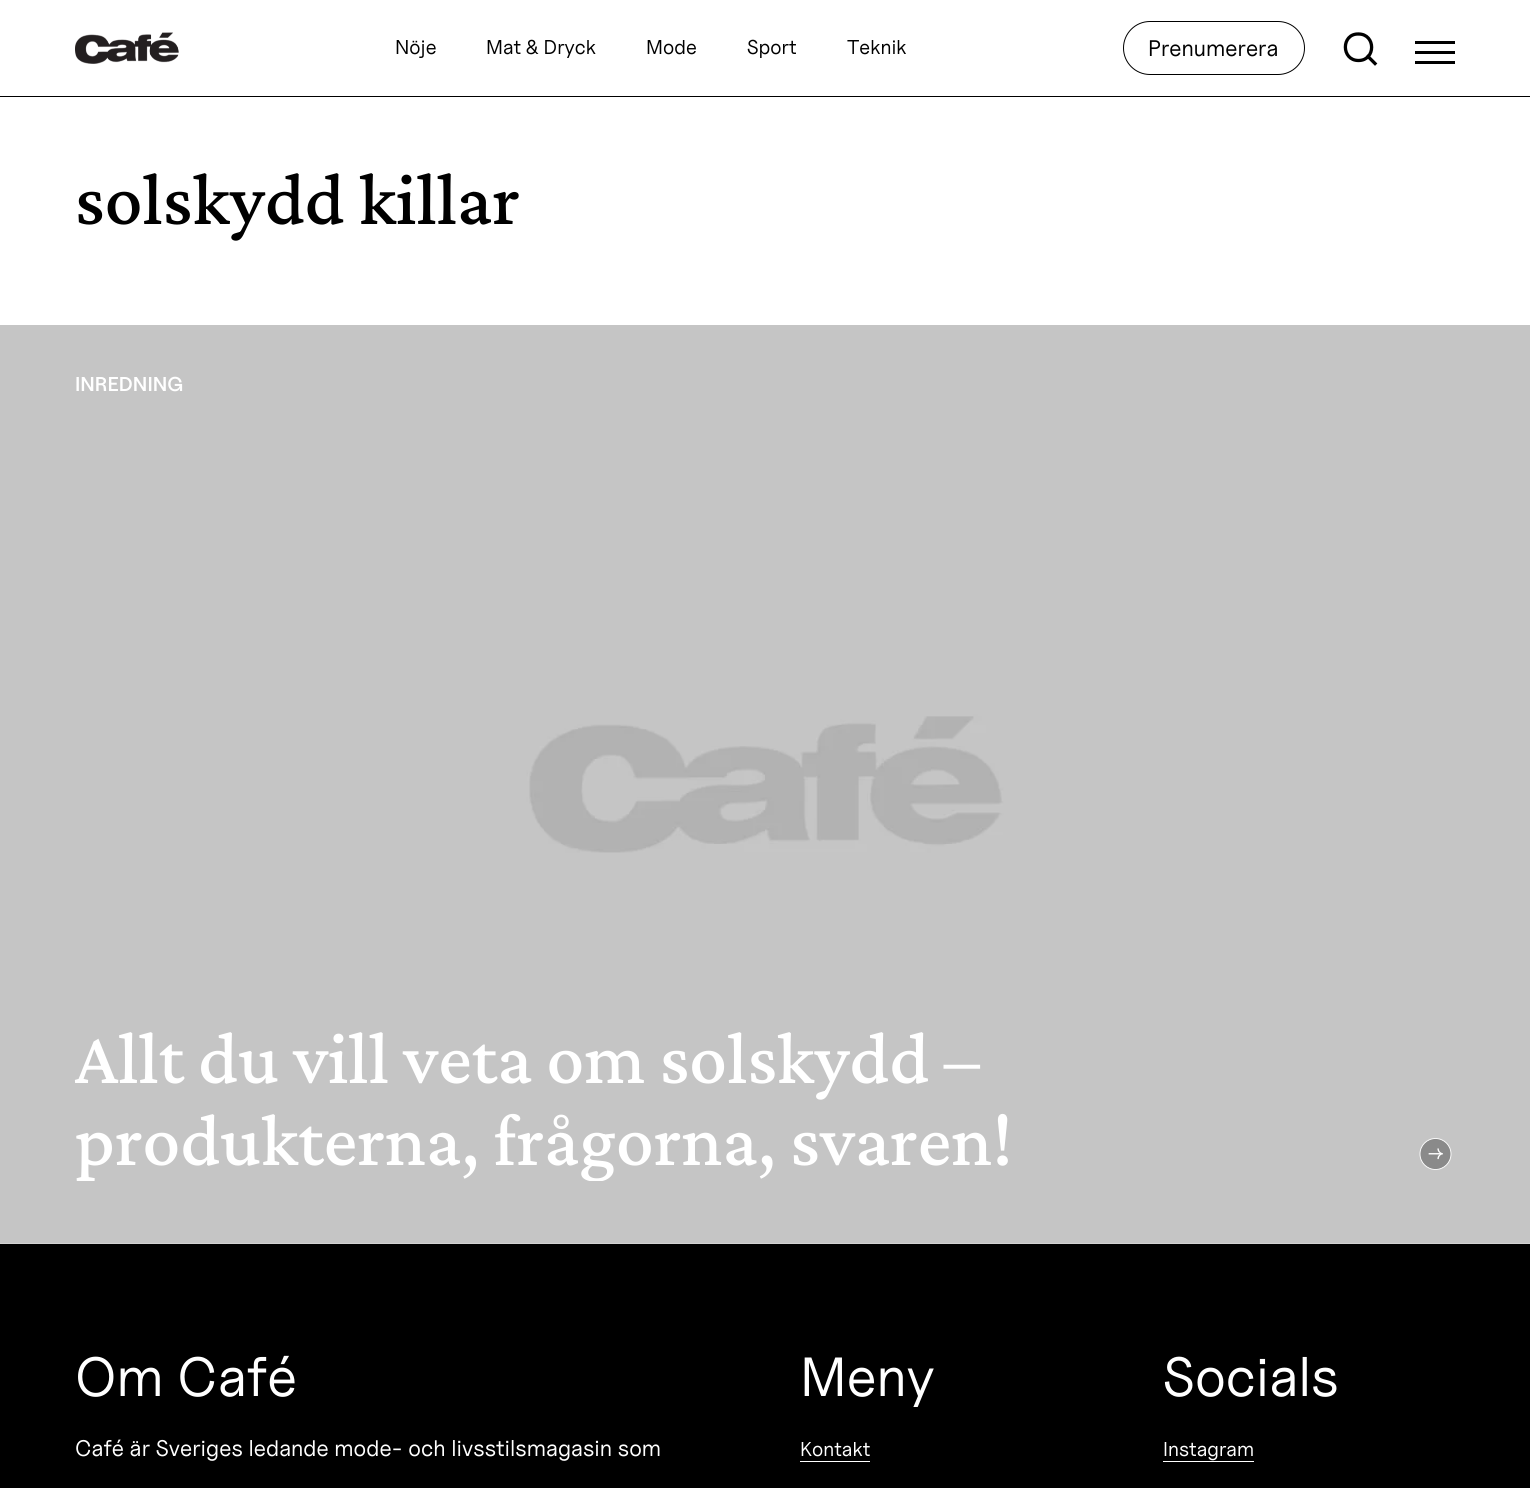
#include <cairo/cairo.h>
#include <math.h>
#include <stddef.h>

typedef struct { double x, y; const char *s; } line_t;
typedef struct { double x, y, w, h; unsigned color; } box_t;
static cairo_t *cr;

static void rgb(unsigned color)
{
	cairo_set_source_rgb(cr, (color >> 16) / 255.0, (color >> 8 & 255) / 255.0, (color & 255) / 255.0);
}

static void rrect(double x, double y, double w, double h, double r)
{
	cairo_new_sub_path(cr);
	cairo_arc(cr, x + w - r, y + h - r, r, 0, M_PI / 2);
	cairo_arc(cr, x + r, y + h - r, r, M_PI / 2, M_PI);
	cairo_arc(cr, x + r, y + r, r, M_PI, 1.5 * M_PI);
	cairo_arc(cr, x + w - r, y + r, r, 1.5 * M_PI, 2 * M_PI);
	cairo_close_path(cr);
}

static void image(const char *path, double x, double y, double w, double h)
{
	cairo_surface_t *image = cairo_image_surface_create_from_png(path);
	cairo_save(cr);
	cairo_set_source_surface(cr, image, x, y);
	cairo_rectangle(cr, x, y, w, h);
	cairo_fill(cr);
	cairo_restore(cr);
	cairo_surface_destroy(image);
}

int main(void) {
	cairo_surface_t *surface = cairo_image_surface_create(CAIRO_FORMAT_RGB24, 1530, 1488);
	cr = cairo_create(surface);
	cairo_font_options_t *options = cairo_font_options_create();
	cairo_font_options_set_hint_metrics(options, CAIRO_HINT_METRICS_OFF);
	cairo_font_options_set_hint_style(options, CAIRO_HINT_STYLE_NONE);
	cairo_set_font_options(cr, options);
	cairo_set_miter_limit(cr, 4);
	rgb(0xffffff);
	cairo_paint(cr);
	rgb(0x000000);
	cairo_rectangle(cr, 0, 96, 1530, 1);
	cairo_fill(cr);
	image("img/1.png", 75, 32, 104, 32);
	rrect(1123.5, 21.5, 181, 53, 26.5);
	cairo_set_line_width(cr, 1);
	cairo_stroke(cr);
	cairo_new_path(cr);
	cairo_move_to(cr, 1358.5, 60.5);
	cairo_curve_to(cr, 1376, 60.5, 1376, 34, 1358.5, 34);
	cairo_curve_to(cr, 1341, 33.5, 1341, 60.5, 1358.5, 60.5);
	cairo_close_path(cr);
	cairo_set_line_width(cr, 3.3);
	cairo_set_line_cap(cr, CAIRO_LINE_CAP_ROUND);
	cairo_set_line_join(cr, CAIRO_LINE_JOIN_ROUND);
	cairo_stroke(cr);
	cairo_new_path(cr);
	cairo_move_to(cr, 1375, 63.5);
	cairo_line_to(cr, 1368, 56.5);
	cairo_set_line_cap(cr, CAIRO_LINE_CAP_SQUARE);
	cairo_stroke(cr);
	{
		static const box_t items[] = {
			{1415, 41, 40, 3, 0x000000},
			{1415, 51, 40, 3, 0x000000},
			{1415, 61, 40, 3, 0x000000},
		};
		for (size_t i = 0; i < sizeof items / sizeof *items; i++) {
			rgb(items[i].color);
			cairo_rectangle(cr, items[i].x, items[i].y, items[i].w, items[i].h);
			cairo_fill(cr);
		}
	}
	image("img/2.png", 0, 325, 1530, 919);
	image("img/3.png", 1419, 1138, 33, 32);
	{
		static const box_t items[] = {
			{0, 1244, 1530, 244, 0x000000},
			{800, 1461, 70, 1, 0xffffff},
			{1163, 1461, 91, 1, 0xffffff},
		};
		for (size_t i = 0; i < sizeof items / sizeof *items; i++) {
			rgb(items[i].color);
			cairo_rectangle(cr, items[i].x, items[i].y, items[i].w, items[i].h);
			cairo_fill(cr);
		}
	}
	cairo_select_font_face(cr, "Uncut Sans", CAIRO_FONT_SLANT_NORMAL, CAIRO_FONT_WEIGHT_NORMAL);
	cairo_set_font_size(cr, 20);
	rgb(0x000000);
	{
		static const line_t items[] = {
			{395, 54, "Nöje"},
			{486, 54, "Mat & Dryck"},
			{646, 54, "Mode"},
			{747, 54, "Sport"},
			{847, 54, "Teknik"},
		};
		for (size_t i = 0; i < sizeof items / sizeof *items; i++) {
			cairo_move_to(cr, items[i].x, items[i].y);
			cairo_show_text(cr, items[i].s);
		}
	}
	cairo_set_font_size(cr, 22.5);
	cairo_move_to(cr, 1148, 56);
	cairo_show_text(cr, "Prenumerera");
	cairo_select_font_face(cr, "Crimson Pro Medium", CAIRO_FONT_SLANT_NORMAL, CAIRO_FONT_WEIGHT_NORMAL);
	cairo_set_font_size(cr, 75);
	cairo_move_to(cr, 75, 224);
	cairo_show_text(cr, "solskydd killar");
	cairo_select_font_face(cr, "Uncut Sans SemiBold", CAIRO_FONT_SLANT_NORMAL, CAIRO_FONT_WEIGHT_NORMAL);
	cairo_set_font_size(cr, 20);
	rgb(0xffffff);
	cairo_move_to(cr, 75, 391);
	cairo_show_text(cr, "INREDNING");
	cairo_select_font_face(cr, "Crimson Pro Medium", CAIRO_FONT_SLANT_NORMAL, CAIRO_FONT_WEIGHT_NORMAL);
	cairo_set_font_size(cr, 75);
	cairo_move_to(cr, 75, 1083);
	cairo_show_text(cr, "Allt du vill veta om solskydd –");
	cairo_save(cr);
	cairo_rectangle(cr, 75, 1016, 1316, 165);
	cairo_clip(cr);
	cairo_move_to(cr, 75, 1165);
	cairo_show_text(cr, "produkterna, frågorna, svaren!");
	cairo_restore(cr);
	cairo_select_font_face(cr, "Uncut Sans", CAIRO_FONT_SLANT_NORMAL, CAIRO_FONT_WEIGHT_NORMAL);
	cairo_set_font_size(cr, 55);
	cairo_move_to(cr, 75, 1396);
	cairo_show_text(cr, "Om Café");
	cairo_set_font_size(cr, 22.5);
	cairo_move_to(cr, 75, 1456);
	cairo_show_text(cr, "Café är Sveriges ledande mode- och livsstilsmagasin som");
	cairo_set_font_size(cr, 55);
	cairo_move_to(cr, 800, 1396);
	cairo_show_text(cr, "Meny");
	cairo_set_font_size(cr, 20);
	cairo_move_to(cr, 800, 1456);
	cairo_show_text(cr, "Kontakt");
	cairo_set_font_size(cr, 55);
	cairo_move_to(cr, 1163, 1396);
	cairo_show_text(cr, "Socials");
	cairo_set_font_size(cr, 20);
	cairo_move_to(cr, 1163, 1456);
	cairo_show_text(cr, "Instagram");
	cairo_surface_write_to_png(surface, "page.png");
	cairo_font_options_destroy(options);
	cairo_destroy(cr);
	cairo_surface_destroy(surface);
	return 0;
}
